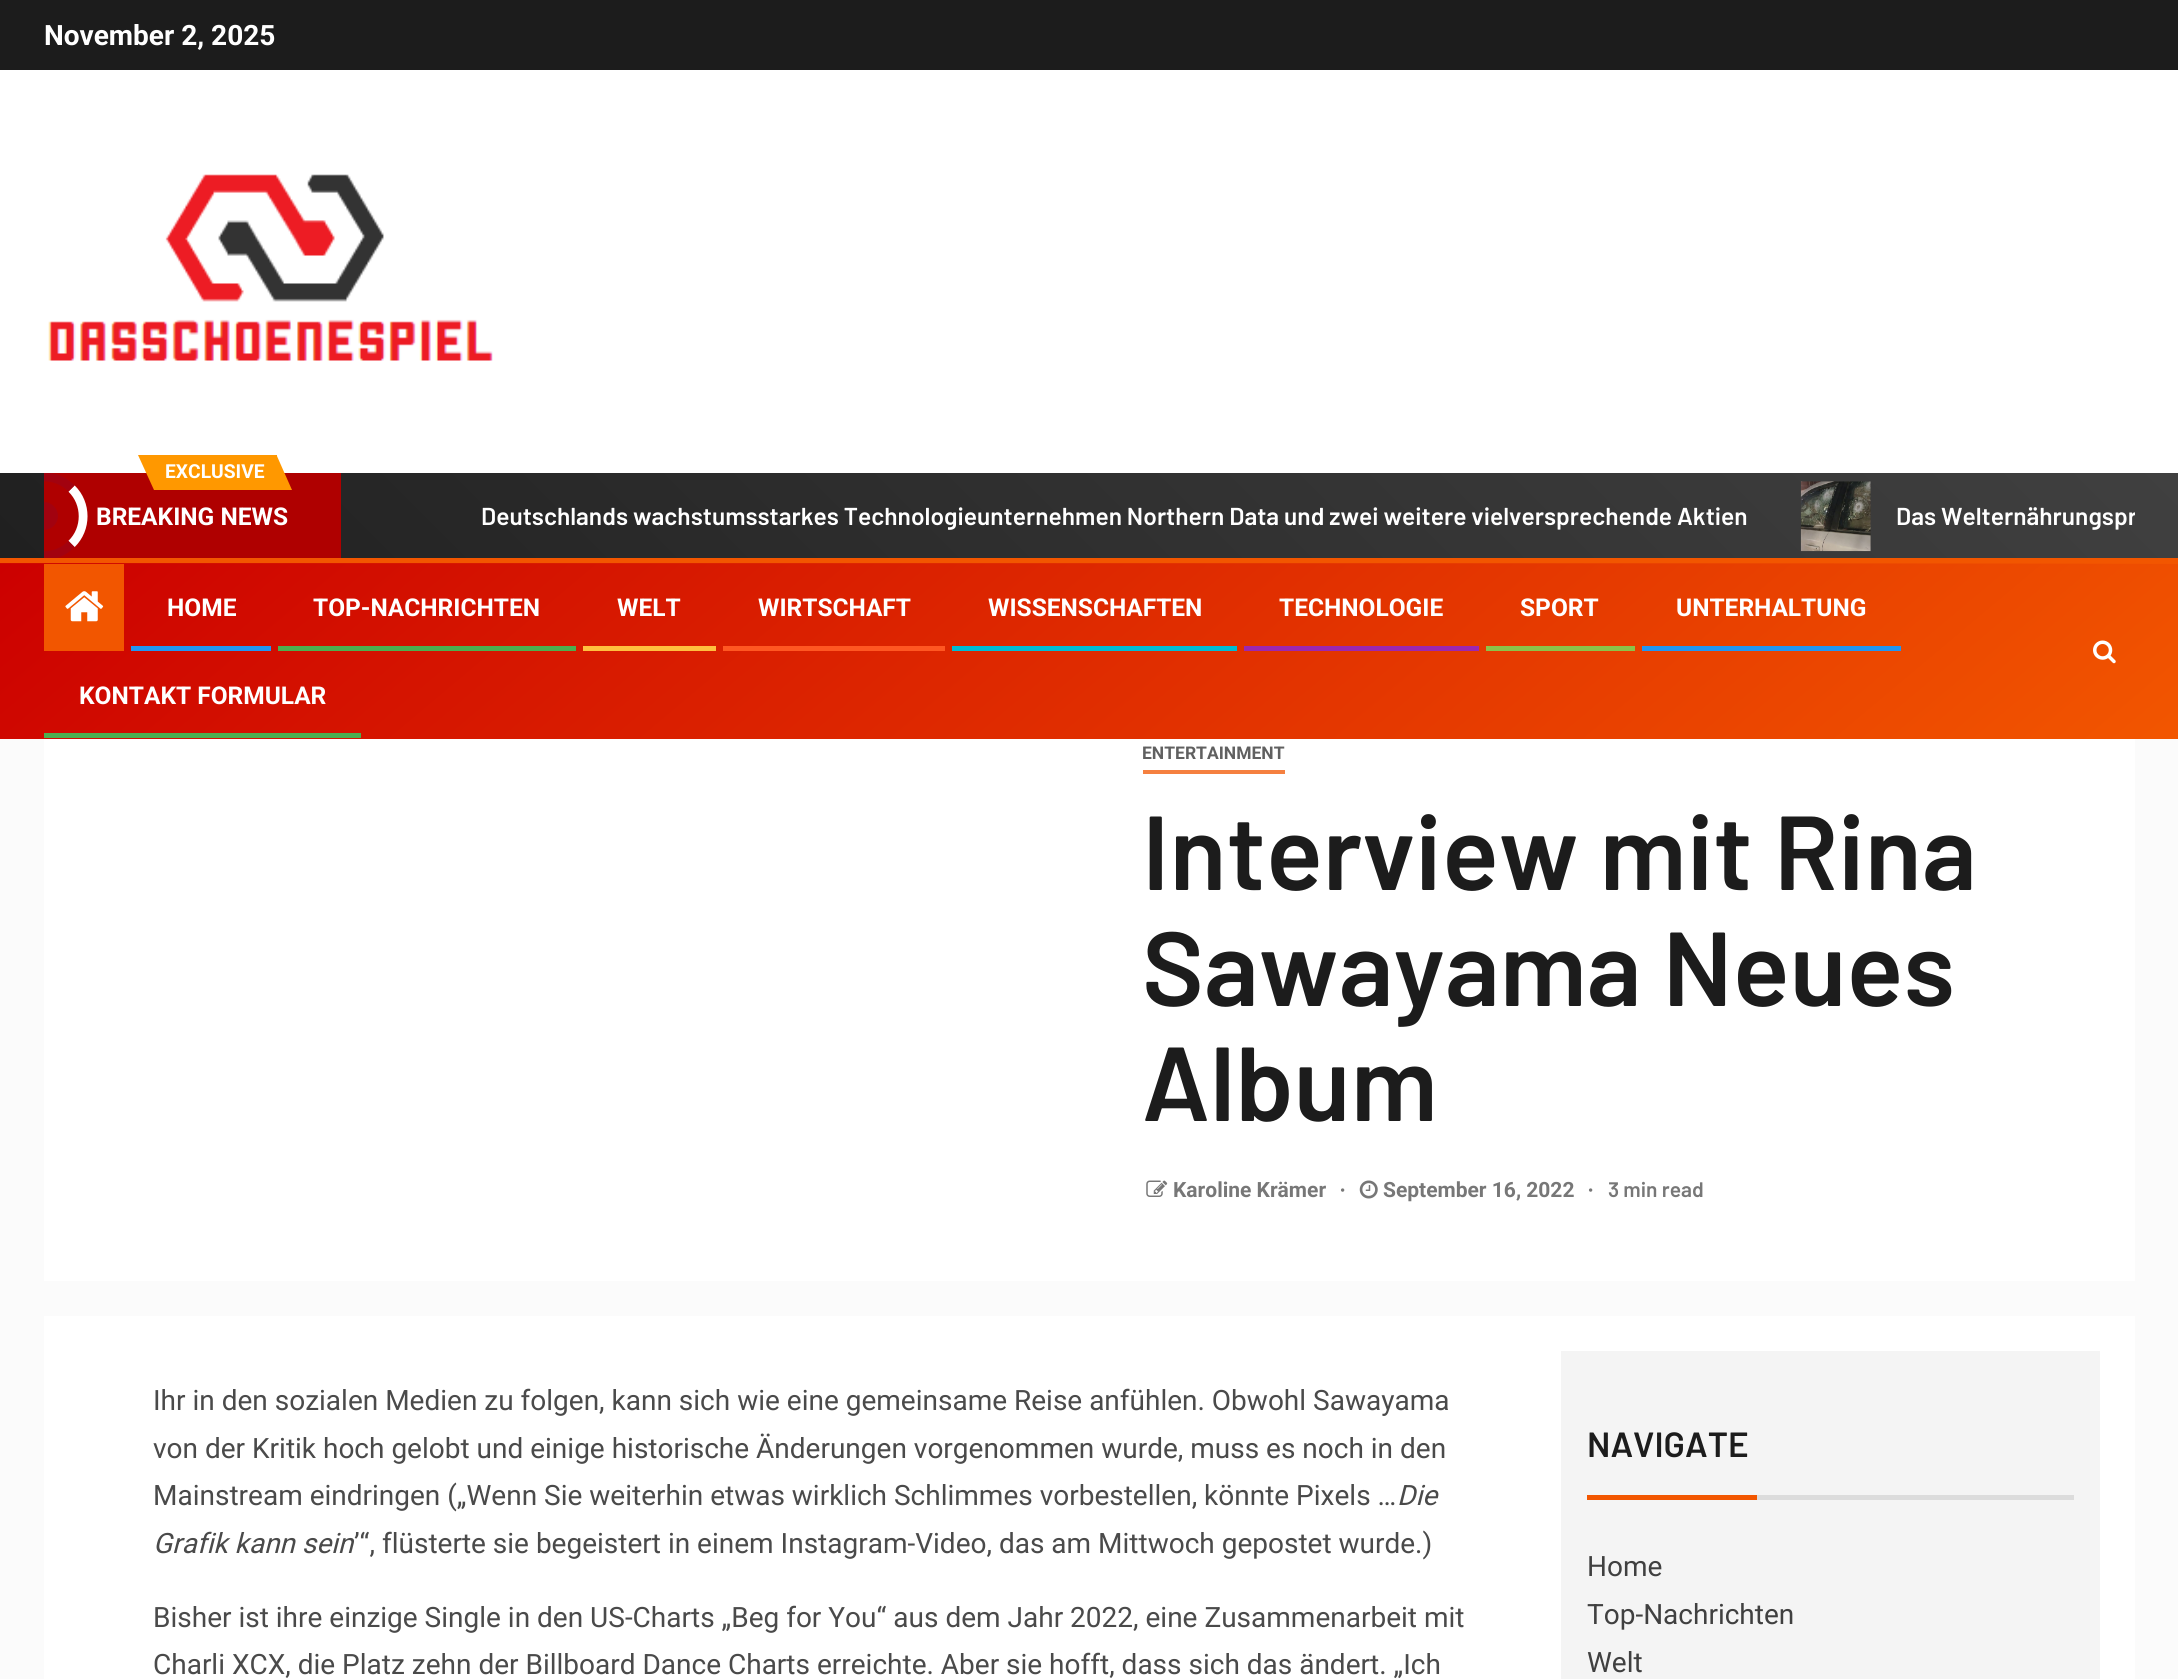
#include <cairo/cairo.h>
#include <math.h>
#include <stddef.h>

typedef struct { double x, y; const char *s; } line_t;
typedef struct { double x, y, w, h; unsigned color; } box_t;
static cairo_t *cr;

static void rgb(unsigned color)
{
	cairo_set_source_rgb(cr, (color >> 16) / 255.0, (color >> 8 & 255) / 255.0, (color & 255) / 255.0);
}

static void image(const char *path, double x, double y, double w, double h)
{
	cairo_surface_t *image = cairo_image_surface_create_from_png(path);
	cairo_save(cr);
	cairo_set_source_surface(cr, image, x, y);
	cairo_rectangle(cr, x, y, w, h);
	cairo_fill(cr);
	cairo_restore(cr);
	cairo_surface_destroy(image);
}

int main(void) {
	cairo_surface_t *surface = cairo_image_surface_create(CAIRO_FORMAT_RGB24, 2178, 1679);
	cr = cairo_create(surface);
	cairo_font_options_t *options = cairo_font_options_create();
	cairo_font_options_set_hint_metrics(options, CAIRO_HINT_METRICS_OFF);
	cairo_font_options_set_hint_style(options, CAIRO_HINT_STYLE_NONE);
	cairo_set_font_options(cr, options);
	cairo_set_miter_limit(cr, 4);
	cairo_pattern_t *gradient;
	rgb(0xfbfbfb);
	cairo_paint(cr);
	rgb(0xffffff);
	cairo_rectangle(cr, 0, 70, 2178, 403);
	cairo_fill(cr);
	rgb(0x1c1c1c);
	cairo_rectangle(cr, 0, 0, 2178, 70);
	cairo_fill(cr);
	image("img/1.png", 48, 174, 445, 187);
	gradient = cairo_pattern_create_linear(523, 1082, 1656, -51);
	cairo_pattern_add_color_stop_rgba(gradient, 0, 0.125, 0.125, 0.125, 1);
	cairo_pattern_add_color_stop_rgba(gradient, 1, 0.251, 0.251, 0.251, 1);
	cairo_set_source(cr, gradient);
	cairo_pattern_destroy(gradient);
	cairo_rectangle(cr, 0, 473, 2178, 85);
	cairo_fill(cr);
	rgb(0xaf0000);
	cairo_rectangle(cr, 44, 473, 297, 85);
	cairo_fill(cr);
	rgb(0xff9800);
	cairo_rectangle(cr, 154, 455, 123, 35);
	cairo_fill(cr);
	cairo_new_path(cr);
	cairo_move_to(cr, 138, 455);
	cairo_line_to(cr, 154, 455);
	cairo_line_to(cr, 154, 490);
	cairo_close_path(cr);
	cairo_fill(cr);
	cairo_new_path(cr);
	cairo_move_to(cr, 292, 490);
	cairo_line_to(cr, 276.5, 490);
	cairo_line_to(cr, 276.5, 455);
	cairo_close_path(cr);
	cairo_fill(cr);
	cairo_new_path(cr);
	cairo_move_to(cr, 71.5, 488.5);
	cairo_curve_to(cr, 87, 503.5, 87, 529, 71.5, 544);
	rgb(0xffffff);
	cairo_set_line_width(cr, 8.8);
	cairo_stroke(cr);
	cairo_save(cr);
	cairo_rectangle(cr, 44, 473, 297, 85);
	cairo_clip(cr);
	cairo_new_path(cr);
	cairo_move_to(cr, 16, 488.5);
	cairo_curve_to(cr, 31, 473, 56.5, 473, 71.5, 488.5);
	rgb(0xa2020f);
	cairo_stroke(cr);
	cairo_new_path(cr);
	cairo_move_to(cr, 71.5, 544);
	cairo_curve_to(cr, 56.5, 559.5, 31, 559.5, 16, 544);
	cairo_stroke(cr);
	cairo_restore(cr);
	rgb(0xa2020f);
	cairo_new_path(cr);
	cairo_move_to(cr, 44, 502);
	cairo_curve_to(cr, 51.5, 502, 58, 508.5, 58, 516);
	cairo_curve_to(cr, 58, 523.5, 51.5, 530, 44, 530);
	cairo_close_path(cr);
	cairo_fill(cr);
	image("img/2.png", 1800, 481, 71, 71);
	gradient = cairo_pattern_create_linear(596, -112, 1583, 1064);
	cairo_pattern_add_color_stop_rgba(gradient, 0, 0.8, 0, 0, 1);
	cairo_pattern_add_color_stop_rgba(gradient, 1, 0.949, 0.337, 0, 1);
	cairo_set_source(cr, gradient);
	cairo_pattern_destroy(gradient);
	cairo_rectangle(cr, 0, 563, 2178, 1);
	cairo_fill(cr);
	gradient = cairo_pattern_create_linear(596, 63, 1583, 1239);
	cairo_pattern_add_color_stop_rgba(gradient, 0, 0.8, 0, 0, 1);
	cairo_pattern_add_color_stop_rgba(gradient, 1, 0.949, 0.337, 0, 1);
	cairo_set_source(cr, gradient);
	cairo_pattern_destroy(gradient);
	cairo_rectangle(cr, 0, 564, 2178, 175);
	cairo_fill(cr);
	rgb(0xf25600);
	cairo_rectangle(cr, 0, 558, 2178, 5);
	cairo_fill(cr);
	cairo_rectangle(cr, 44, 564, 80, 87);
	cairo_fill(cr);
	image("img/3.png", 65, 591, 39, 31);
	{
		static const box_t items[] = {
			{131, 646, 140, 5, 0x2196f3},
			{278, 646, 298, 5, 0x4caf50},
			{583, 646, 133, 5, 0xffbf3f},
			{723, 646, 222, 5, 0xff5722},
			{952, 646, 285, 5, 0x00bcd4},
			{1244, 646, 235, 5, 0x9c27b0},
			{1486, 646, 149, 5, 0x8bc34a},
			{1642, 646, 259, 5, 0x2196f3},
			{44, 733, 317, 5, 0x4caf50},
		};
		for (size_t i = 0; i < sizeof items / sizeof *items; i++) {
			rgb(items[i].color);
			cairo_rectangle(cr, items[i].x, items[i].y, items[i].w, items[i].h);
			cairo_fill(cr);
		}
	}
	image("img/4.png", 2093, 640, 23, 24);
	rgb(0xffffff);
	cairo_rectangle(cr, 44, 739, 2091, 542);
	cairo_fill(cr);
	rgb(0xf58040);
	cairo_rectangle(cr, 1143, 770, 142, 4);
	cairo_fill(cr);
	image("img/5.png", 1146, 1180, 22, 17);
	image("img/6.png", 1359, 1180, 19, 19);
	{
		static const box_t items[] = {
			{44, 1316, 2091, 363, 0xffffff},
			{1561, 1351, 539, 328, 0xf4f4f4},
			{1587, 1495, 170, 5, 0xf25600},
			{1757, 1495, 317, 5, 0xdcdcdc},
		};
		for (size_t i = 0; i < sizeof items / sizeof *items; i++) {
			rgb(items[i].color);
			cairo_rectangle(cr, items[i].x, items[i].y, items[i].w, items[i].h);
			cairo_fill(cr);
		}
	}
	cairo_select_font_face(cr, "Roboto", CAIRO_FONT_SLANT_NORMAL, CAIRO_FONT_WEIGHT_BOLD);
	cairo_set_font_size(cr, 28);
	rgb(0xffffff);
	cairo_move_to(cr, 44, 45);
	cairo_show_text(cr, "November 2, 2025");
	cairo_set_font_size(cr, 19.25);
	cairo_move_to(cr, 165, 478);
	cairo_show_text(cr, "EXCLUSIVE");
	cairo_set_font_size(cr, 24.5);
	cairo_move_to(cr, 96, 525);
	cairo_show_text(cr, "BREAKING NEWS");
	cairo_select_font_face(cr, "Barlow SemiBold", CAIRO_FONT_SLANT_NORMAL, CAIRO_FONT_WEIGHT_NORMAL);
	cairo_move_to(cr, 481, 525);
	cairo_show_text(cr, "Deutschlands wachstumsstarkes Technologieunternehmen Northern Data und zwei weitere vielversprechende Aktien");
	cairo_save(cr);
	cairo_rectangle(cr, 350, 481, 1785, 70);
	cairo_clip(cr);
	cairo_move_to(cr, 1896, 525);
	cairo_show_text(cr, "Das Welternährungspr");
	cairo_restore(cr);
	cairo_select_font_face(cr, "Roboto", CAIRO_FONT_SLANT_NORMAL, CAIRO_FONT_WEIGHT_BOLD);
	{
		static const line_t items[] = {
			{167, 616, "HOME"},
			{313, 616, "TOP-NACHRICHTEN"},
			{617, 616, "WELT"},
			{758, 616, "WIRTSCHAFT"},
			{988, 616, "WISSENSCHAFTEN"},
			{1279, 616, "TECHNOLOGIE"},
			{1520, 616, "SPORT"},
			{1676, 616, "UNTERHALTUNG"},
			{79, 704, "KONTAKT FORMULAR"},
		};
		for (size_t i = 0; i < sizeof items / sizeof *items; i++) {
			cairo_move_to(cr, items[i].x, items[i].y);
			cairo_show_text(cr, items[i].s);
		}
	}
	cairo_set_font_size(cr, 17.5);
	rgb(0x606060);
	cairo_move_to(cr, 1142, 759);
	cairo_show_text(cr, "ENTERTAINMENT");
	cairo_select_font_face(cr, "Barlow SemiBold", CAIRO_FONT_SLANT_NORMAL, CAIRO_FONT_WEIGHT_NORMAL);
	cairo_set_font_size(cr, 105);
	rgb(0x1c1c1c);
	{
		static const line_t items[] = {
			{1142, 890, "Interview mit Rina"},
			{1142, 1006, "Sawayama Neues"},
			{1142, 1121, "Album"},
		};
		for (size_t i = 0; i < sizeof items / sizeof *items; i++) {
			cairo_move_to(cr, items[i].x, items[i].y);
			cairo_show_text(cr, items[i].s);
		}
	}
	cairo_select_font_face(cr, "Roboto", CAIRO_FONT_SLANT_NORMAL, CAIRO_FONT_WEIGHT_BOLD);
	cairo_set_font_size(cr, 21);
	rgb(0x777777);
	cairo_move_to(cr, 1173, 1197);
	cairo_show_text(cr, "Karoline Krämer");
	cairo_select_font_face(cr, "Liberation Serif", CAIRO_FONT_SLANT_NORMAL, CAIRO_FONT_WEIGHT_BOLD);
	cairo_move_to(cr, 1340, 1197);
	cairo_show_text(cr, "∙");
	cairo_select_font_face(cr, "Roboto", CAIRO_FONT_SLANT_NORMAL, CAIRO_FONT_WEIGHT_BOLD);
	cairo_move_to(cr, 1383, 1197);
	cairo_show_text(cr, "September 16, 2022");
	cairo_select_font_face(cr, "Liberation Serif", CAIRO_FONT_SLANT_NORMAL, CAIRO_FONT_WEIGHT_BOLD);
	cairo_move_to(cr, 1588, 1197);
	cairo_show_text(cr, "∙");
	cairo_select_font_face(cr, "Barlow SemiBold", CAIRO_FONT_SLANT_NORMAL, CAIRO_FONT_WEIGHT_NORMAL);
	cairo_move_to(cr, 1608, 1197);
	cairo_show_text(cr, "3 min read");
	cairo_select_font_face(cr, "Roboto", CAIRO_FONT_SLANT_NORMAL, CAIRO_FONT_WEIGHT_NORMAL);
	cairo_set_font_size(cr, 28);
	rgb(0x4a4a4a);
	{
		static const line_t items[] = {
			{153, 1410, "Ihr in den sozialen Medien zu folgen, kann sich wie eine gemeinsame Reise anfühlen. Obwohl Sawayama"},
			{153, 1458, "von der Kritik hoch gelobt und einige historische Änderungen vorgenommen wurde, muss es noch in den"},
			{153, 1505, "Mainstream eindringen („Wenn Sie weiterhin etwas wirklich Schlimmes vorbestellen, könnte Pixels …"},
		};
		for (size_t i = 0; i < sizeof items / sizeof *items; i++) {
			cairo_move_to(cr, items[i].x, items[i].y);
			cairo_show_text(cr, items[i].s);
		}
	}
	cairo_select_font_face(cr, "Roboto", CAIRO_FONT_SLANT_ITALIC, CAIRO_FONT_WEIGHT_NORMAL);
	cairo_move_to(cr, 1397, 1505);
	cairo_show_text(cr, "Die");
	cairo_move_to(cr, 153, 1553);
	cairo_show_text(cr, "Grafik kann sein");
	cairo_select_font_face(cr, "Roboto", CAIRO_FONT_SLANT_NORMAL, CAIRO_FONT_WEIGHT_NORMAL);
	{
		static const line_t items[] = {
			{354, 1553, "’“, flüsterte sie begeistert in einem Instagram-Video, das am Mittwoch gepostet wurde.)"},
			{153, 1627, "Bisher ist ihre einzige Single in den US-Charts „Beg for You“ aus dem Jahr 2022, eine Zusammenarbeit mit"},
			{153, 1674, "Charli XCX, die Platz zehn der Billboard Dance Charts erreichte. Aber sie hofft, dass sich das ändert. „Ich"},
		};
		for (size_t i = 0; i < sizeof items / sizeof *items; i++) {
			cairo_move_to(cr, items[i].x, items[i].y);
			cairo_show_text(cr, items[i].s);
		}
	}
	cairo_select_font_face(cr, "Barlow SemiBold", CAIRO_FONT_SLANT_NORMAL, CAIRO_FONT_WEIGHT_NORMAL);
	cairo_set_font_size(cr, 35);
	rgb(0x1c1c1c);
	cairo_move_to(cr, 1587, 1457);
	cairo_show_text(cr, "NAVIGATE");
	cairo_select_font_face(cr, "Roboto", CAIRO_FONT_SLANT_NORMAL, CAIRO_FONT_WEIGHT_NORMAL);
	cairo_set_font_size(cr, 28);
	rgb(0x404040);
	{
		static const line_t items[] = {
			{1587, 1576, "Home"},
			{1587, 1624, "Top-Nachrichten"},
			{1587, 1672, "Welt"},
		};
		for (size_t i = 0; i < sizeof items / sizeof *items; i++) {
			cairo_move_to(cr, items[i].x, items[i].y);
			cairo_show_text(cr, items[i].s);
		}
	}
	cairo_surface_write_to_png(surface, "page.png");
	cairo_font_options_destroy(options);
	cairo_destroy(cr);
	cairo_surface_destroy(surface);
	return 0;
}
